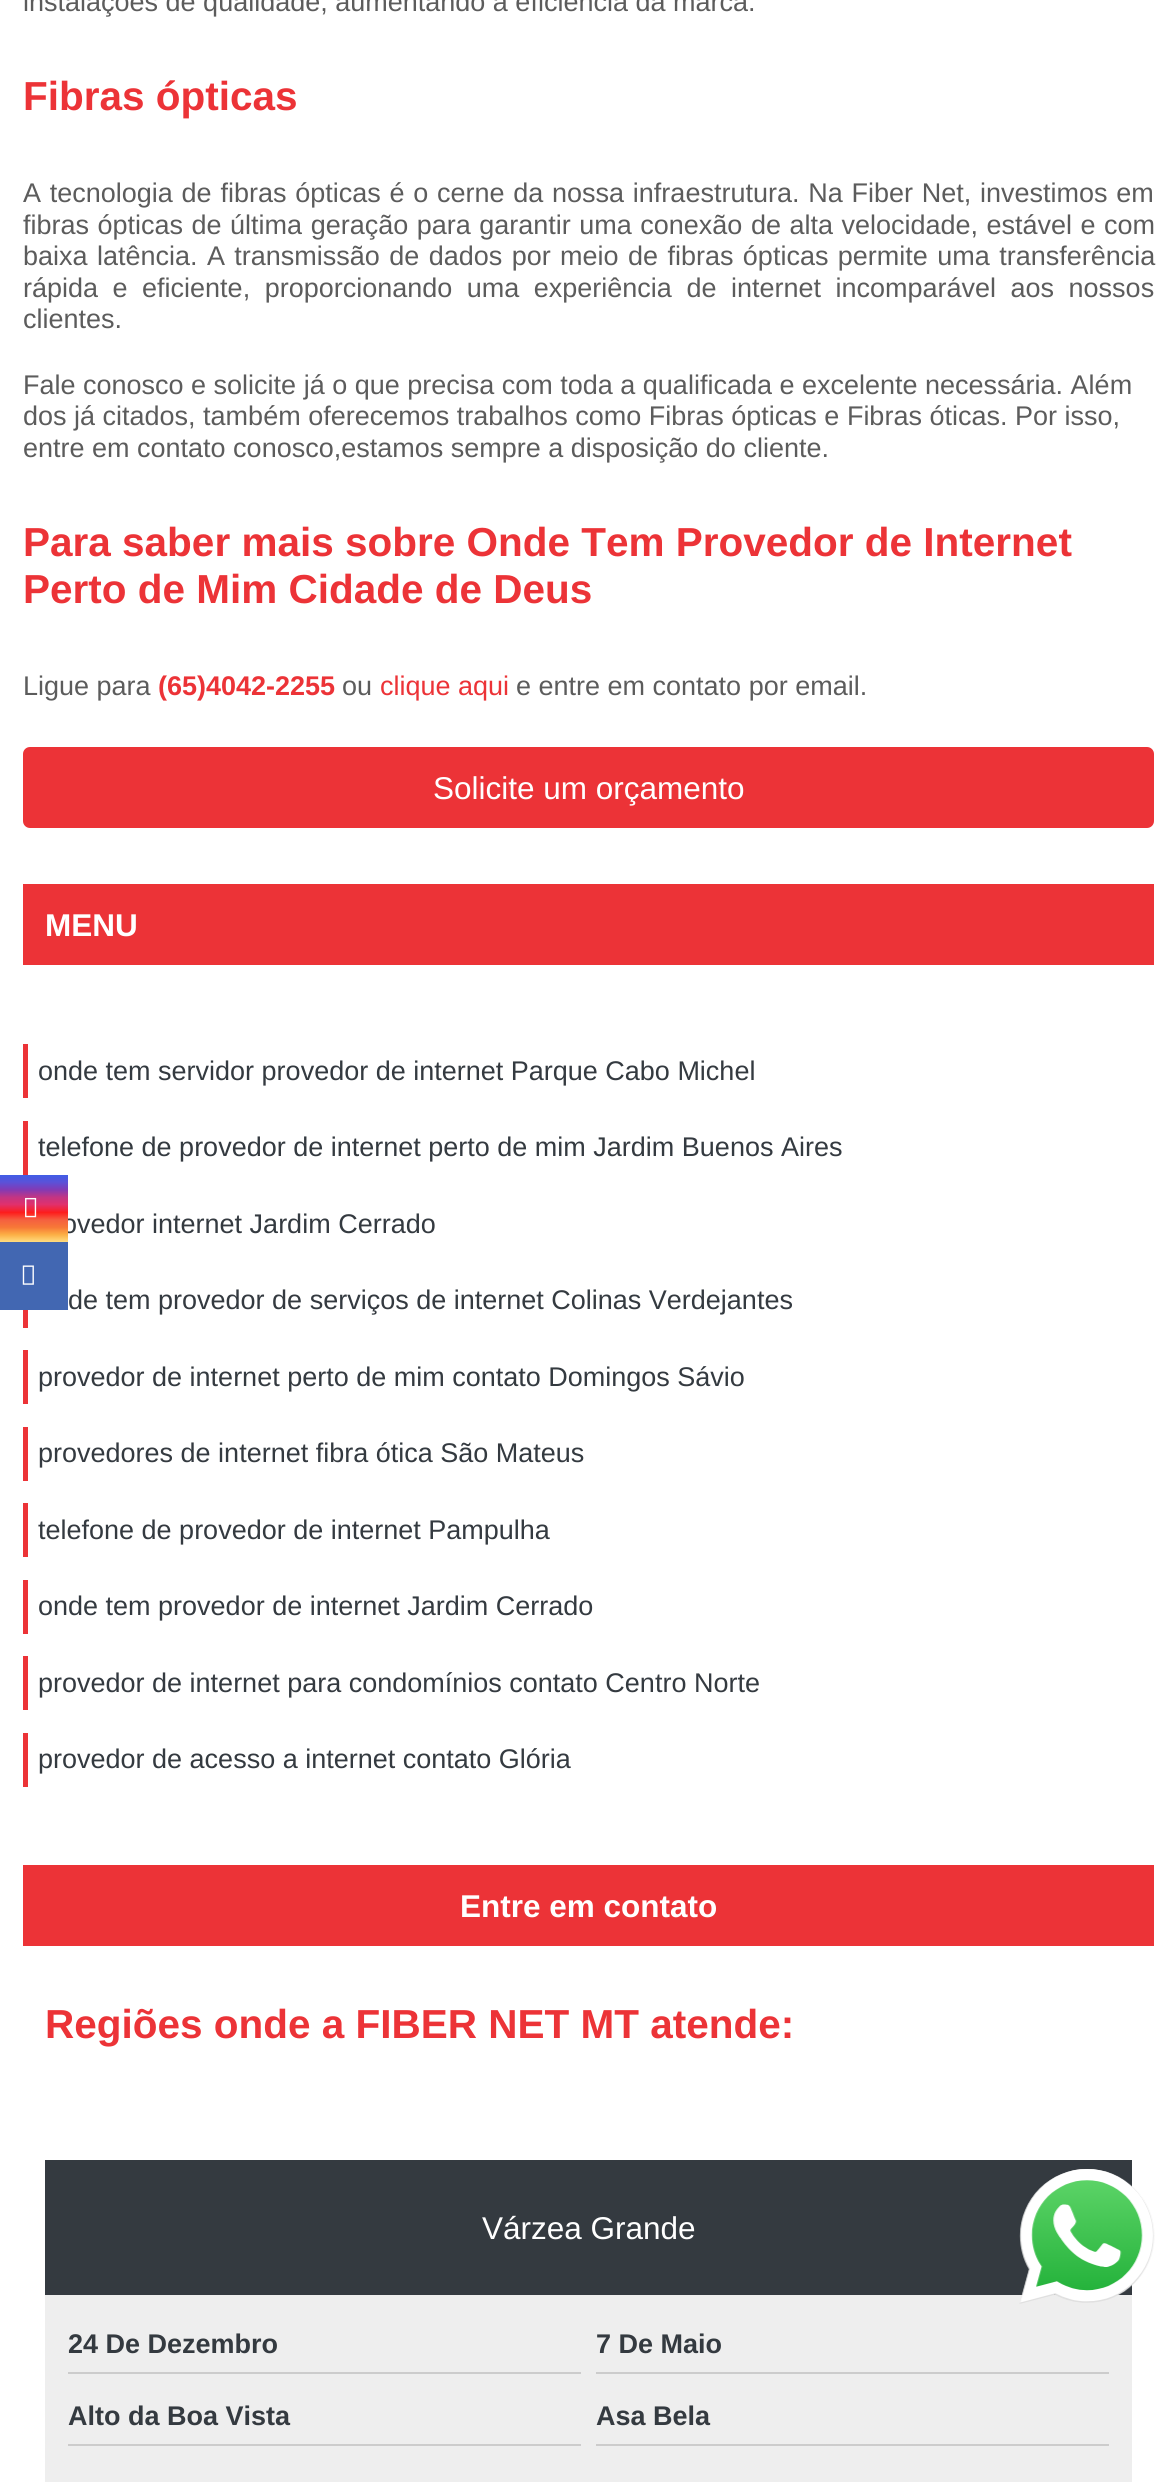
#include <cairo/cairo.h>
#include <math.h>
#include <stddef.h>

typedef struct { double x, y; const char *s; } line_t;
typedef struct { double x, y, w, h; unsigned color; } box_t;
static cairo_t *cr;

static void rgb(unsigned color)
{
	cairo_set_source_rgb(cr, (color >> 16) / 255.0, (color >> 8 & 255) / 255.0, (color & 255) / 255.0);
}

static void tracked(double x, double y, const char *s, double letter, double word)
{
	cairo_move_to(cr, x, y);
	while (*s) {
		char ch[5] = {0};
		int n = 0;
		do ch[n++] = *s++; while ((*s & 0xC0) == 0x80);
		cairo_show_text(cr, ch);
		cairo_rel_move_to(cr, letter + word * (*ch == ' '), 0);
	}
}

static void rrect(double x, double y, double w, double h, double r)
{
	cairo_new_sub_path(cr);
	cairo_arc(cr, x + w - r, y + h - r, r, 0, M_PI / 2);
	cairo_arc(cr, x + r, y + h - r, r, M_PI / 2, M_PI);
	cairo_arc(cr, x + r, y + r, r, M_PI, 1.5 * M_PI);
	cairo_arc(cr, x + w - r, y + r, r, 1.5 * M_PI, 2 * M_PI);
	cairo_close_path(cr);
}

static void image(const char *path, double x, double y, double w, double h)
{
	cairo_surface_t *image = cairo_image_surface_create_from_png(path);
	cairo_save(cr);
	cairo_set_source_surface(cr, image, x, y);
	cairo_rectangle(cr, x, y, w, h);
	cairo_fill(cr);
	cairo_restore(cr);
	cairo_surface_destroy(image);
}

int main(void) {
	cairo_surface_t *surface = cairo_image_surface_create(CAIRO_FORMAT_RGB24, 1176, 2482);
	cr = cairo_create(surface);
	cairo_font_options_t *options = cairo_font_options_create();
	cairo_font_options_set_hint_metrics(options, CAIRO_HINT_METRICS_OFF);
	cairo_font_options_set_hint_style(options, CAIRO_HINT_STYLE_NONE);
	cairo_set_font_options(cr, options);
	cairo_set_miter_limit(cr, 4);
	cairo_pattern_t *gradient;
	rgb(0xffffff);
	cairo_paint(cr);
	rgb(0xec3337);
	rrect(23, 747, 1131, 81, 7);
	cairo_fill(cr);
	{
		static const box_t items[] = {
			{23, 884, 1131, 81, 0xec3337},
			{23, 1044, 5, 54, 0xec3337},
			{23, 1121, 5, 54, 0xec3337},
			{23, 1310, 5, 18, 0xec3337},
			{23, 1350, 5, 54, 0xec3337},
			{23, 1427, 5, 54, 0xec3337},
			{23, 1503, 5, 54, 0xec3337},
			{23, 1580, 5, 54, 0xec3337},
			{23, 1656, 5, 54, 0xec3337},
			{23, 1733, 5, 54, 0xec3337},
			{23, 1865, 1131, 81, 0xec3337},
			{45, 2160, 1087, 135, 0x343a40},
			{45, 2295, 1087, 187, 0xeeeeee},
			{68, 2372, 513, 2, 0xcccccc},
			{596, 2372, 513, 2, 0xcccccc},
			{68, 2444, 513, 2, 0xcccccc},
			{596, 2444, 513, 2, 0xcccccc},
			{0, 1242, 68, 68, 0x4267b2},
		};
		for (size_t i = 0; i < sizeof items / sizeof *items; i++) {
			rgb(items[i].color);
			cairo_rectangle(cr, items[i].x, items[i].y, items[i].w, items[i].h);
			cairo_fill(cr);
		}
	}
	image("img/2.png", 22, 1265, 12, 20);
	image("img/3.png", 1019, 2169, 136, 135);
	cairo_select_font_face(cr, "Liberation Sans", CAIRO_FONT_SLANT_NORMAL, CAIRO_FONT_WEIGHT_NORMAL);
	cairo_set_font_size(cr, 27);
	rgb(0x5c5c5c);
	cairo_move_to(cr, 23, 11);
	cairo_show_text(cr, "instalações de qualidade, aumentando a eficiência da marca.");
	cairo_select_font_face(cr, "Liberation Sans", CAIRO_FONT_SLANT_NORMAL, CAIRO_FONT_WEIGHT_BOLD);
	cairo_set_font_size(cr, 40.5);
	rgb(0xec3337);
	cairo_move_to(cr, 23, 110);
	cairo_show_text(cr, "Fibras ópticas");
	cairo_select_font_face(cr, "Liberation Sans", CAIRO_FONT_SLANT_NORMAL, CAIRO_FONT_WEIGHT_NORMAL);
	cairo_set_font_size(cr, 27);
	rgb(0x5c5c5c);
	tracked(23, 202, "A tecnologia de fibras ópticas é o cerne da nossa infraestrutura. Na Fiber Net, investimos em", 0, 1.25);
	tracked(23, 234, "fibras ópticas de última geração para garantir uma conexão de alta velocidade, estável e com", 0, 1);
	tracked(23, 265, "baixa latência. A transmissão de dados por meio de fibras ópticas permite uma transferência", 0, 1.9);
	tracked(23, 297, "rápida e eficiente, proporcionando uma experiência de internet incomparável aos nossos", 0, 7);
	{
		static const line_t items[] = {
			{23, 328, "clientes."},
			{23, 394, "Fale conosco e solicite já o que precisa com toda a qualificada e excelente necessária. Além"},
			{23, 425, "dos já citados, também oferecemos trabalhos como Fibras ópticas e Fibras óticas. Por isso,"},
			{23, 457, "entre em contato conosco,estamos sempre a disposição do cliente."},
		};
		for (size_t i = 0; i < sizeof items / sizeof *items; i++) {
			cairo_move_to(cr, items[i].x, items[i].y);
			cairo_show_text(cr, items[i].s);
		}
	}
	cairo_select_font_face(cr, "Liberation Sans", CAIRO_FONT_SLANT_NORMAL, CAIRO_FONT_WEIGHT_BOLD);
	cairo_set_font_size(cr, 40.5);
	rgb(0xec3337);
	cairo_move_to(cr, 23, 556);
	cairo_show_text(cr, "Para saber mais sobre Onde Tem Provedor de Internet");
	cairo_move_to(cr, 23, 603);
	cairo_show_text(cr, "Perto de Mim Cidade de Deus");
	cairo_select_font_face(cr, "Liberation Sans", CAIRO_FONT_SLANT_NORMAL, CAIRO_FONT_WEIGHT_NORMAL);
	cairo_set_font_size(cr, 27);
	rgb(0x5c5c5c);
	cairo_move_to(cr, 23, 695);
	cairo_show_text(cr, "Ligue para");
	cairo_select_font_face(cr, "Liberation Sans", CAIRO_FONT_SLANT_NORMAL, CAIRO_FONT_WEIGHT_BOLD);
	rgb(0xec3337);
	cairo_move_to(cr, 158, 695);
	cairo_show_text(cr, "(65)4042-2255");
	cairo_select_font_face(cr, "Liberation Sans", CAIRO_FONT_SLANT_NORMAL, CAIRO_FONT_WEIGHT_NORMAL);
	rgb(0x5c5c5c);
	cairo_move_to(cr, 342, 695);
	cairo_show_text(cr, "ou");
	rgb(0xec3337);
	cairo_move_to(cr, 380, 695);
	cairo_show_text(cr, "clique aqui");
	rgb(0x5c5c5c);
	cairo_move_to(cr, 516, 695);
	cairo_show_text(cr, "e entre em contato por email.");
	cairo_set_font_size(cr, 31.5);
	rgb(0xffffff);
	cairo_move_to(cr, 433, 799);
	cairo_show_text(cr, "Solicite um orçamento");
	cairo_select_font_face(cr, "Liberation Sans", CAIRO_FONT_SLANT_NORMAL, CAIRO_FONT_WEIGHT_BOLD);
	cairo_move_to(cr, 45, 936);
	cairo_show_text(cr, "MENU");
	cairo_select_font_face(cr, "Liberation Sans", CAIRO_FONT_SLANT_NORMAL, CAIRO_FONT_WEIGHT_NORMAL);
	cairo_set_font_size(cr, 27);
	rgb(0x343a40);
	{
		static const line_t items[] = {
			{38, 1080, "onde tem servidor provedor de internet Parque Cabo Michel"},
			{38, 1156, "telefone de provedor de internet perto de mim Jardim Buenos Aires"},
			{62, 1233, "ovedor internet Jardim Cerrado"},
			{68, 1309, "de tem provedor de serviços de internet Colinas Verdejantes"},
			{38, 1386, "provedor de internet perto de mim contato Domingos Sávio"},
			{38, 1462, "provedores de internet fibra ótica São Mateus"},
			{38, 1539, "telefone de provedor de internet Pampulha"},
			{38, 1615, "onde tem provedor de internet Jardim Cerrado"},
			{38, 1692, "provedor de internet para condomínios contato Centro Norte"},
			{38, 1768, "provedor de acesso a internet contato Glória"},
		};
		for (size_t i = 0; i < sizeof items / sizeof *items; i++) {
			cairo_move_to(cr, items[i].x, items[i].y);
			cairo_show_text(cr, items[i].s);
		}
	}
	cairo_select_font_face(cr, "Liberation Sans", CAIRO_FONT_SLANT_NORMAL, CAIRO_FONT_WEIGHT_BOLD);
	cairo_set_font_size(cr, 31.5);
	rgb(0xffffff);
	cairo_move_to(cr, 460, 1917);
	cairo_show_text(cr, "Entre em contato");
	cairo_set_font_size(cr, 40.5);
	rgb(0xec3337);
	cairo_move_to(cr, 45, 2038);
	cairo_show_text(cr, "Regiões onde a FIBER NET MT atende:");
	cairo_select_font_face(cr, "Liberation Sans", CAIRO_FONT_SLANT_NORMAL, CAIRO_FONT_WEIGHT_NORMAL);
	cairo_set_font_size(cr, 31.5);
	rgb(0xffffff);
	cairo_move_to(cr, 482, 2239);
	cairo_show_text(cr, "Várzea Grande");
	cairo_select_font_face(cr, "Liberation Sans", CAIRO_FONT_SLANT_NORMAL, CAIRO_FONT_WEIGHT_BOLD);
	cairo_set_font_size(cr, 27);
	rgb(0x343a40);
	{
		static const line_t items[] = {
			{68, 2353, "24 De Dezembro"},
			{596, 2353, "7 De Maio"},
			{68, 2425, "Alto da Boa Vista"},
			{596, 2425, "Asa Bela"},
		};
		for (size_t i = 0; i < sizeof items / sizeof *items; i++) {
			cairo_move_to(cr, items[i].x, items[i].y);
			cairo_show_text(cr, items[i].s);
		}
	}
	gradient = cairo_pattern_create_linear(34, 1175, 34, 1242);
	cairo_pattern_add_color_stop_rgba(gradient, 0, 0.251, 0.365, 0.902, 1);
	cairo_pattern_add_color_stop_rgba(gradient, 0.11, 0.357, 0.318, 0.847, 1);
	cairo_pattern_add_color_stop_rgba(gradient, 0.22, 0.514, 0.227, 0.706, 1);
	cairo_pattern_add_color_stop_rgba(gradient, 0.33, 0.757, 0.208, 0.518, 1);
	cairo_pattern_add_color_stop_rgba(gradient, 0.44, 0.882, 0.188, 0.424, 1);
	cairo_pattern_add_color_stop_rgba(gradient, 0.56, 0.992, 0.114, 0.114, 1);
	cairo_pattern_add_color_stop_rgba(gradient, 0.67, 0.961, 0.376, 0.251, 1);
	cairo_pattern_add_color_stop_rgba(gradient, 0.78, 0.969, 0.467, 0.216, 1);
	cairo_pattern_add_color_stop_rgba(gradient, 0.89, 0.988, 0.686, 0.271, 1);
	cairo_pattern_add_color_stop_rgba(gradient, 1, 1, 0.863, 0.502, 1);
	cairo_set_source(cr, gradient);
	cairo_pattern_destroy(gradient);
	cairo_rectangle(cr, 0, 1175, 68, 67);
	cairo_fill(cr);
	image("img/1.png", 25, 1197, 12, 21);
	cairo_surface_write_to_png(surface, "page.png");
	cairo_font_options_destroy(options);
	cairo_destroy(cr);
	cairo_surface_destroy(surface);
	return 0;
}
